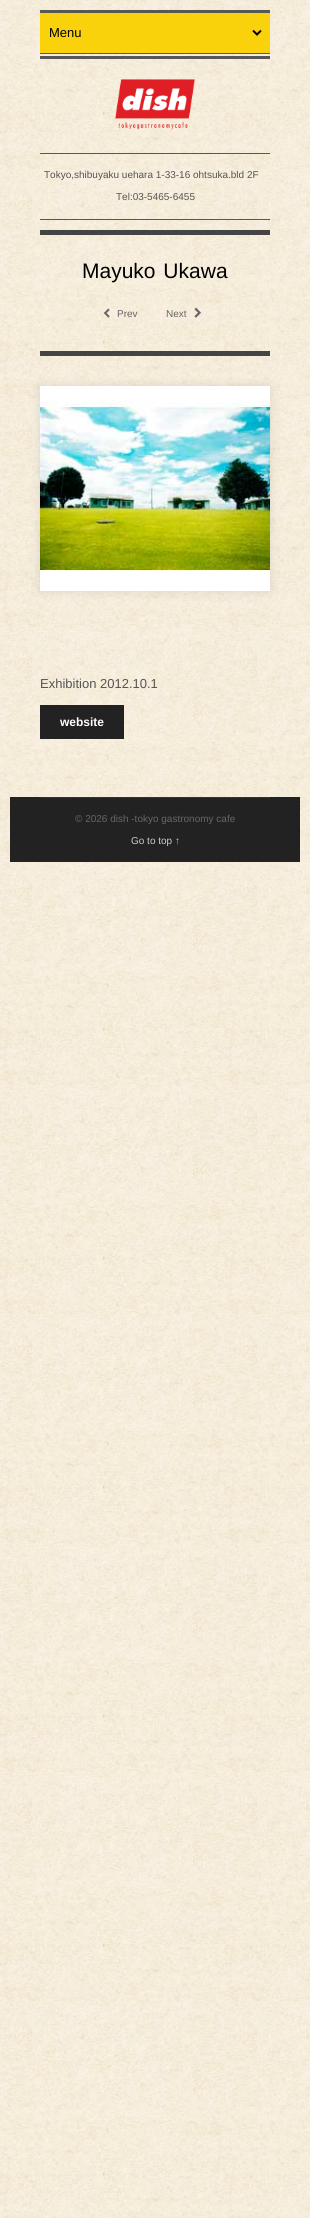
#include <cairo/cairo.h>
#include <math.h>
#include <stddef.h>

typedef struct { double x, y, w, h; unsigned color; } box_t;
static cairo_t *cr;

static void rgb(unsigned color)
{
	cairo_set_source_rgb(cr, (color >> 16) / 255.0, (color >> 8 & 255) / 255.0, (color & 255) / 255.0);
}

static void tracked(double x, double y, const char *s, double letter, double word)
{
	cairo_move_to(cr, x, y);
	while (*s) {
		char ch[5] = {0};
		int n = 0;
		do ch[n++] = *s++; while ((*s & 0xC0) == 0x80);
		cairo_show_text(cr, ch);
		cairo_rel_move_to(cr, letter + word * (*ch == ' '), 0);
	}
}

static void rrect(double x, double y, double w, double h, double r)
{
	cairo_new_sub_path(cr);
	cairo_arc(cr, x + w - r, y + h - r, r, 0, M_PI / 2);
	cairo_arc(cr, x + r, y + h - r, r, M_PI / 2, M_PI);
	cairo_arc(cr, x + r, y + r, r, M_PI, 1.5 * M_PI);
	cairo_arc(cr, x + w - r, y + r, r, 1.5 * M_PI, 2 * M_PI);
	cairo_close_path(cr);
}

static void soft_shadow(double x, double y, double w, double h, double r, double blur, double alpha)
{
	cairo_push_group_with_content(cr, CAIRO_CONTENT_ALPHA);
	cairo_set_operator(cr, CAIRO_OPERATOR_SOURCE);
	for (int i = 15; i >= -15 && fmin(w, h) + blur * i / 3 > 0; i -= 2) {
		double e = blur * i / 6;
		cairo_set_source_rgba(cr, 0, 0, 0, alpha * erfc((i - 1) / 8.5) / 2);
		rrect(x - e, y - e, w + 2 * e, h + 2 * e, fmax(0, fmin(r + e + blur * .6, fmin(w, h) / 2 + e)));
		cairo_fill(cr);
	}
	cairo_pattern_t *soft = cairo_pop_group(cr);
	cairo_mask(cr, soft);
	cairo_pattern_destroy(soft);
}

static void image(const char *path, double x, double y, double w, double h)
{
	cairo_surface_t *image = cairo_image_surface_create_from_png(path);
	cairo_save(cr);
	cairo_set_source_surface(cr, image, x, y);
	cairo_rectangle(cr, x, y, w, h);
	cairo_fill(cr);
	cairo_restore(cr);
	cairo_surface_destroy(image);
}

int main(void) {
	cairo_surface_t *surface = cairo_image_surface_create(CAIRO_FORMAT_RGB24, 310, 2218);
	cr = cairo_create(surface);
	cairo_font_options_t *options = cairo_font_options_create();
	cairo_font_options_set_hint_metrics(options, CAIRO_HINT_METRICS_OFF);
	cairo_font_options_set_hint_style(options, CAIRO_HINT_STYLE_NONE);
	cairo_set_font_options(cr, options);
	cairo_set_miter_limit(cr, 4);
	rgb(0xffffff);
	cairo_paint(cr);
	image("img/1.png", 0, 0, 310, 2218);
	{
		static const box_t items[] = {
			{40, 230, 230, 5, 0x444444},
			{40, 13, 230, 40, 0xf9d20b},
			{40, 10, 230, 3, 0x575757},
			{40, 53, 230, 1, 0x575757},
		};
		for (size_t i = 0; i < sizeof items / sizeof *items; i++) {
			rgb(items[i].color);
			cairo_rectangle(cr, items[i].x, items[i].y, items[i].w, items[i].h);
			cairo_fill(cr);
		}
	}
	cairo_new_path(cr);
	cairo_move_to(cr, 253, 30.5);
	cairo_line_to(cr, 257, 34.5);
	cairo_line_to(cr, 261, 30.5);
	rgb(0x000000);
	cairo_stroke(cr);
	rgb(0x575757);
	cairo_rectangle(cr, 40, 56, 230, 3);
	cairo_fill(cr);
	image("img/2.png", 115, 79, 80, 51);
	{
		static const box_t items[] = {
			{40, 153, 230, 1, 0x575757},
			{40, 219, 230, 1, 0x575757},
			{40, 351, 230, 5, 0x444444},
		};
		for (size_t i = 0; i < sizeof items / sizeof *items; i++) {
			rgb(items[i].color);
			cairo_rectangle(cr, items[i].x, items[i].y, items[i].w, items[i].h);
			cairo_fill(cr);
		}
	}
	image("img/3.png", 103, 308, 7, 10);
	image("img/4.png", 194, 307, 7, 11);
	rgb(0x999999);
	soft_shadow(40, 386, 230, 205, 0, 5, 0.3);
	image("img/5.png", 40, 386, 230, 205);
	{
		static const box_t items[] = {
			{40, 705, 84, 34, 0x222222},
			{10, 797, 290, 65, 0x222222},
			{40, 797, 230, 1, 0x333333},
		};
		for (size_t i = 0; i < sizeof items / sizeof *items; i++) {
			rgb(items[i].color);
			cairo_rectangle(cr, items[i].x, items[i].y, items[i].w, items[i].h);
			cairo_fill(cr);
		}
	}
	cairo_select_font_face(cr, "Liberation Sans", CAIRO_FONT_SLANT_NORMAL, CAIRO_FONT_WEIGHT_NORMAL);
	cairo_set_font_size(cr, 13);
	rgb(0x000000);
	cairo_move_to(cr, 49, 37);
	cairo_show_text(cr, "Menu");
	cairo_set_font_size(cr, 10);
	rgb(0x555555);
	cairo_move_to(cr, 44, 178);
	cairo_show_text(cr, "Tokyo,shibuyaku uehara 1-33-16 ohtsuka.bld 2F");
	cairo_move_to(cr, 116, 200);
	cairo_show_text(cr, "Tel:03-5465-6455");
	cairo_set_font_size(cr, 21);
	rgb(0x000000);
	tracked(82, 278, "Mayuko Ukawa", 0, 2);
	cairo_set_font_size(cr, 10);
	rgb(0x666666);
	cairo_move_to(cr, 117, 317);
	cairo_show_text(cr, "Prev");
	cairo_move_to(cr, 166, 317);
	cairo_show_text(cr, "Next");
	cairo_set_font_size(cr, 13);
	rgb(0x555555);
	cairo_move_to(cr, 40, 688);
	cairo_show_text(cr, "Exhibition 2012.10.1");
	cairo_select_font_face(cr, "Liberation Sans", CAIRO_FONT_SLANT_NORMAL, CAIRO_FONT_WEIGHT_BOLD);
	cairo_set_font_size(cr, 12);
	rgb(0xffffff);
	cairo_move_to(cr, 60, 726);
	cairo_show_text(cr, "website");
	cairo_select_font_face(cr, "Liberation Sans", CAIRO_FONT_SLANT_NORMAL, CAIRO_FONT_WEIGHT_NORMAL);
	cairo_set_font_size(cr, 10);
	rgb(0x666666);
	cairo_move_to(cr, 75, 822);
	cairo_show_text(cr, "© 2026 dish -tokyo gastronomy cafe");
	rgb(0xcccccc);
	cairo_move_to(cr, 131, 844);
	cairo_show_text(cr, "Go to top ↑");
	cairo_surface_write_to_png(surface, "page.png");
	cairo_font_options_destroy(options);
	cairo_destroy(cr);
	cairo_surface_destroy(surface);
	return 0;
}
